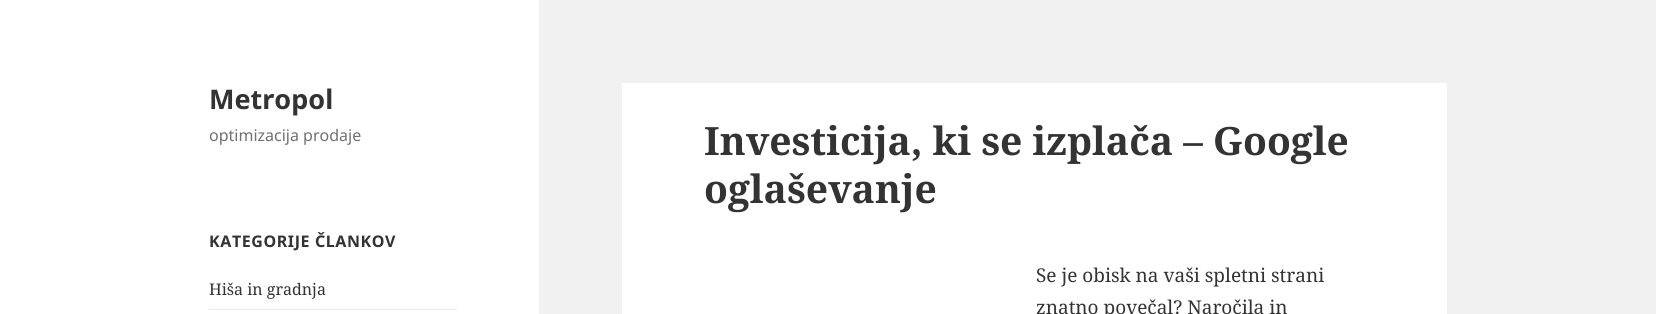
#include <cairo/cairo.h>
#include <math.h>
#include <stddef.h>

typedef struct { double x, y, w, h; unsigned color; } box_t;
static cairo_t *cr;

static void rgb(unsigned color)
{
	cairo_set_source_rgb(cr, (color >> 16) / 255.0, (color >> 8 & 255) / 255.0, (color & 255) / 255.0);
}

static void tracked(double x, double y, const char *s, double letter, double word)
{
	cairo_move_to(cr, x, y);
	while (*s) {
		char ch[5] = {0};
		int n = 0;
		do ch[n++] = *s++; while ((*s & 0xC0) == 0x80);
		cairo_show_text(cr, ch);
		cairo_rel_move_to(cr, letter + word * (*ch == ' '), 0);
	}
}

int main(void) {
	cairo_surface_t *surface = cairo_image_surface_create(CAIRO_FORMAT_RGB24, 1656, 314);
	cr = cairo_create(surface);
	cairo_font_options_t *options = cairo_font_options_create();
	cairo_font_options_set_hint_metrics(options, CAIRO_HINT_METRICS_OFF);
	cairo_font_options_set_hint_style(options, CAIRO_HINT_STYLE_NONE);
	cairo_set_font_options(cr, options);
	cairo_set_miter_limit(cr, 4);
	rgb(0xf1f1f1);
	cairo_paint(cr);
	{
		static const box_t items[] = {
			{0, 0, 539, 314, 0xffffff},
			{209, 309, 248, 1, 0xebebeb},
			{622, 83, 825, 231, 0xffffff},
		};
		for (size_t i = 0; i < sizeof items / sizeof *items; i++) {
			rgb(items[i].color);
			cairo_rectangle(cr, items[i].x, items[i].y, items[i].w, items[i].h);
			cairo_fill(cr);
		}
	}
	cairo_select_font_face(cr, "Noto Sans", CAIRO_FONT_SLANT_NORMAL, CAIRO_FONT_WEIGHT_BOLD);
	cairo_set_font_size(cr, 27);
	rgb(0x333333);
	cairo_move_to(cr, 209, 109);
	cairo_show_text(cr, "Metropol");
	cairo_select_font_face(cr, "Noto Sans", CAIRO_FONT_SLANT_NORMAL, CAIRO_FONT_WEIGHT_NORMAL);
	cairo_set_font_size(cr, 16);
	rgb(0x707070);
	cairo_move_to(cr, 209, 141);
	cairo_show_text(cr, "optimizacija prodaje");
	cairo_select_font_face(cr, "Noto Sans", CAIRO_FONT_SLANT_NORMAL, CAIRO_FONT_WEIGHT_BOLD);
	rgb(0x333333);
	tracked(209, 247, "KATEGORIJE ČLANKOV", 0.6, 0);
	cairo_select_font_face(cr, "Noto Serif", CAIRO_FONT_SLANT_NORMAL, CAIRO_FONT_WEIGHT_NORMAL);
	cairo_move_to(cr, 209, 295);
	cairo_show_text(cr, "Hiša in gradnja");
	cairo_select_font_face(cr, "Noto Serif", CAIRO_FONT_SLANT_NORMAL, CAIRO_FONT_WEIGHT_BOLD);
	cairo_set_font_size(cr, 39);
	cairo_move_to(cr, 704, 155);
	cairo_show_text(cr, "Investicija, ki se izplača – Google");
	cairo_move_to(cr, 704, 203);
	cairo_show_text(cr, "oglaševanje");
	cairo_select_font_face(cr, "Noto Serif", CAIRO_FONT_SLANT_NORMAL, CAIRO_FONT_WEIGHT_NORMAL);
	cairo_set_font_size(cr, 19);
	cairo_move_to(cr, 1036, 282);
	cairo_show_text(cr, "Se je obisk na vaši spletni strani");
	cairo_move_to(cr, 1036, 314);
	cairo_show_text(cr, "znatno povečal? Naročila in");
	cairo_surface_write_to_png(surface, "page.png");
	cairo_font_options_destroy(options);
	cairo_destroy(cr);
	cairo_surface_destroy(surface);
	return 0;
}
